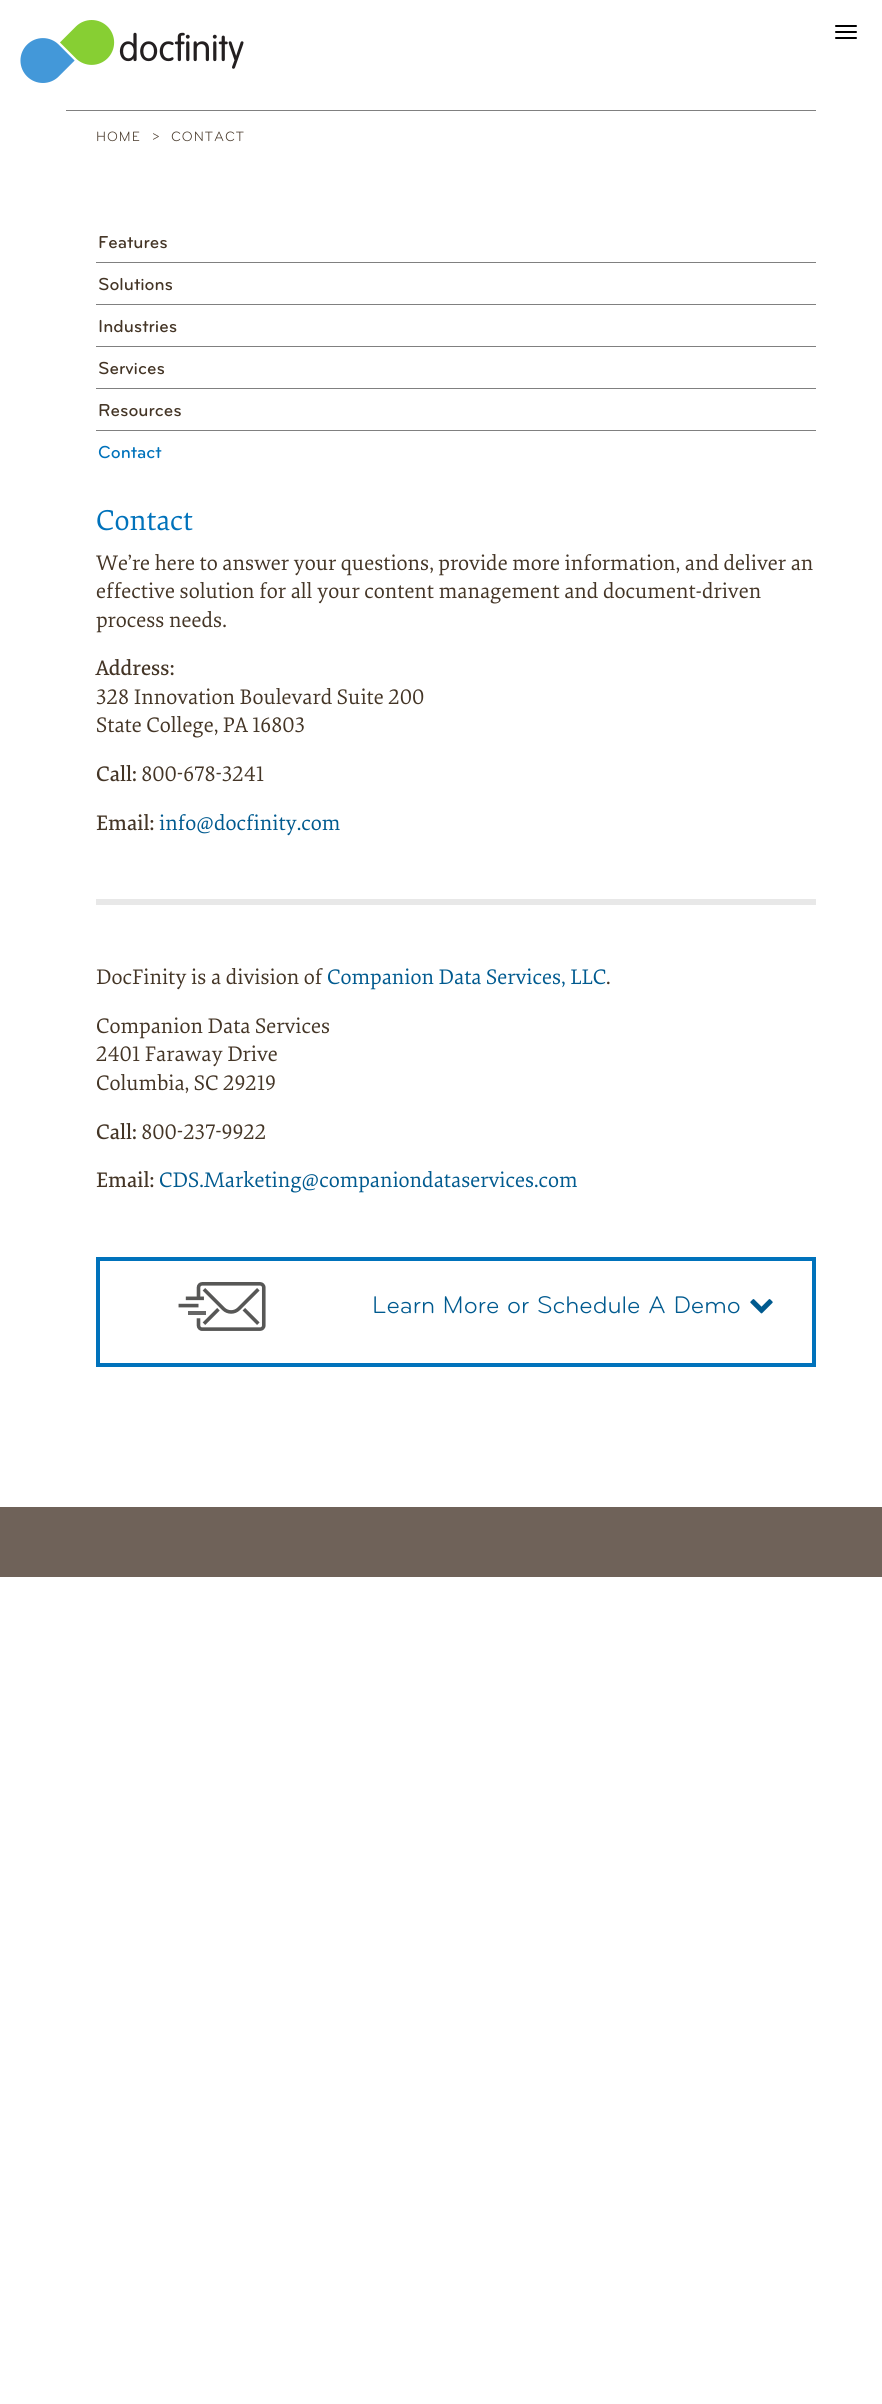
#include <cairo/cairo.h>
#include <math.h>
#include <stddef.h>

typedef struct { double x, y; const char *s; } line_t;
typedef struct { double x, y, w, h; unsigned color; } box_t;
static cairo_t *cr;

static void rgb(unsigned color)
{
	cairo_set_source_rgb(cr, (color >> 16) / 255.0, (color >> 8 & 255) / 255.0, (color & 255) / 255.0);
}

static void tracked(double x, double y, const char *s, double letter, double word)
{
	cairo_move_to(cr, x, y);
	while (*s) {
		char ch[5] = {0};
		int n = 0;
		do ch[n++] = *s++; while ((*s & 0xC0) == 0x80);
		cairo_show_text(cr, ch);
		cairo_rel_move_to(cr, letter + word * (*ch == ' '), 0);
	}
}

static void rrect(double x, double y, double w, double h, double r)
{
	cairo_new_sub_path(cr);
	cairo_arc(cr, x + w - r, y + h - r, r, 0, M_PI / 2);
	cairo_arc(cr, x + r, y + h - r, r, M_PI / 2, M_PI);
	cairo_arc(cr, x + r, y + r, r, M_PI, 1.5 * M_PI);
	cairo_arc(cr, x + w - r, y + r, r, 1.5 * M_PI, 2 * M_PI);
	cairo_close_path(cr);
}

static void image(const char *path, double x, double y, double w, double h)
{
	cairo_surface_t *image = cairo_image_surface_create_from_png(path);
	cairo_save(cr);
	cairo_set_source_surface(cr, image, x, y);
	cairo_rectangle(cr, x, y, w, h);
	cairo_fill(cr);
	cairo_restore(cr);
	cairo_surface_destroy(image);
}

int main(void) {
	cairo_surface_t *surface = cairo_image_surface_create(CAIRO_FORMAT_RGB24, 882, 2404);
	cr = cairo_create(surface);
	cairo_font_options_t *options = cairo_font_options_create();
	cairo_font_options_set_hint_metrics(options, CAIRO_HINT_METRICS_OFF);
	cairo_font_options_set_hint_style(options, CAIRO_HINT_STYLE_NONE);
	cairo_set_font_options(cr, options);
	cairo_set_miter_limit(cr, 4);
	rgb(0xffffff);
	cairo_paint(cr);
	image("img/1.png", 20, 20, 224, 63);
	rgb(0x000000);
	rrect(835, 25, 22, 2, 1);
	cairo_fill(cr);
	rrect(835, 31, 22, 2, 1);
	cairo_fill(cr);
	rrect(835, 37, 22, 2, 1);
	cairo_fill(cr);
	{
		static const box_t items[] = {
			{66, 110, 750, 1, 0x808080},
			{96, 262, 720, 1, 0x808080},
			{96, 304, 720, 1, 0x808080},
			{96, 346, 720, 1, 0x808080},
			{96, 388, 720, 1, 0x808080},
			{96, 430, 720, 1, 0x808080},
			{96, 899, 720, 6, 0xe8e8e8},
		};
		for (size_t i = 0; i < sizeof items / sizeof *items; i++) {
			rgb(items[i].color);
			cairo_rectangle(cr, items[i].x, items[i].y, items[i].w, items[i].h);
			cairo_fill(cr);
		}
	}
	cairo_rectangle(cr, 98, 1259, 716, 106);
	rgb(0x0072bb);
	cairo_set_line_width(cr, 4);
	cairo_stroke(cr);
	image("img/2.png", 178, 1282, 88, 49);
	image("img/3.png", 750, 1299, 23, 15);
	rgb(0x6f6259);
	cairo_rectangle(cr, 0, 1507, 882, 70);
	cairo_fill(cr);
	cairo_select_font_face(cr, "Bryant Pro", CAIRO_FONT_SLANT_NORMAL, CAIRO_FONT_WEIGHT_NORMAL);
	cairo_set_font_size(cr, 14);
	rgb(0x443526);
	{
		static const line_t items[] = {
			{96, 141, "HOME"},
			{152, 141, ">"},
			{171, 141, "CONTACT"},
		};
		for (size_t i = 0; i < sizeof items / sizeof *items; i++) {
			tracked(items[i].x, items[i].y, items[i].s, 1, 0);
		}
	}
	cairo_select_font_face(cr, "Bryant Pro Medium", CAIRO_FONT_SLANT_NORMAL, CAIRO_FONT_WEIGHT_NORMAL);
	cairo_set_font_size(cr, 18);
	{
		static const line_t items[] = {
			{98, 248, "Features"},
			{98, 290, "Solutions"},
			{98, 332, "Industries"},
			{98, 374, "Services"},
			{98, 416, "Resources"},
		};
		for (size_t i = 0; i < sizeof items / sizeof *items; i++) {
			cairo_move_to(cr, items[i].x, items[i].y);
			cairo_show_text(cr, items[i].s);
		}
	}
	rgb(0x0072bb);
	cairo_move_to(cr, 98, 458);
	cairo_show_text(cr, "Contact");
	cairo_select_font_face(cr, "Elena", CAIRO_FONT_SLANT_NORMAL, CAIRO_FONT_WEIGHT_NORMAL);
	cairo_set_font_size(cr, 30);
	cairo_move_to(cr, 96, 530);
	cairo_show_text(cr, "Contact");
	cairo_set_font_size(cr, 22);
	rgb(0x443526);
	{
		static const line_t items[] = {
			{96, 570, "We’re here to answer your questions, provide more information, and deliver an"},
			{96, 598, "effective solution for all your content management and document-driven"},
			{96, 627, "process needs."},
		};
		for (size_t i = 0; i < sizeof items / sizeof *items; i++) {
			cairo_move_to(cr, items[i].x, items[i].y);
			cairo_show_text(cr, items[i].s);
		}
	}
	cairo_select_font_face(cr, "Elena Medium", CAIRO_FONT_SLANT_NORMAL, CAIRO_FONT_WEIGHT_NORMAL);
	cairo_move_to(cr, 96, 675);
	cairo_show_text(cr, "Address:");
	cairo_select_font_face(cr, "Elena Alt", CAIRO_FONT_SLANT_NORMAL, CAIRO_FONT_WEIGHT_NORMAL);
	cairo_move_to(cr, 96, 704);
	cairo_show_text(cr, "328 Innovation Boulevard Suite 200");
	cairo_move_to(cr, 96, 732);
	cairo_show_text(cr, "State College, PA 16803");
	cairo_select_font_face(cr, "Elena Medium", CAIRO_FONT_SLANT_NORMAL, CAIRO_FONT_WEIGHT_NORMAL);
	cairo_move_to(cr, 96, 781);
	cairo_show_text(cr, "Call:");
	cairo_select_font_face(cr, "Elena Alt", CAIRO_FONT_SLANT_NORMAL, CAIRO_FONT_WEIGHT_NORMAL);
	cairo_move_to(cr, 141, 781);
	cairo_show_text(cr, "800-678-3241");
	cairo_select_font_face(cr, "Elena Medium", CAIRO_FONT_SLANT_NORMAL, CAIRO_FONT_WEIGHT_NORMAL);
	cairo_move_to(cr, 96, 830);
	cairo_show_text(cr, "Email:");
	cairo_select_font_face(cr, "Elena", CAIRO_FONT_SLANT_NORMAL, CAIRO_FONT_WEIGHT_NORMAL);
	rgb(0x005a8f);
	cairo_move_to(cr, 159, 830);
	cairo_show_text(cr, "info@docfinity.com");
	rgb(0x443526);
	cairo_move_to(cr, 96, 984);
	cairo_show_text(cr, "DocFinity is a division of");
	rgb(0x005a8f);
	cairo_move_to(cr, 327, 984);
	cairo_show_text(cr, "Companion Data Services, LLC");
	rgb(0x443526);
	cairo_move_to(cr, 606, 984);
	cairo_show_text(cr, ".");
	cairo_move_to(cr, 96, 1033);
	cairo_show_text(cr, "Companion Data Services");
	cairo_select_font_face(cr, "Elena Alt", CAIRO_FONT_SLANT_NORMAL, CAIRO_FONT_WEIGHT_NORMAL);
	cairo_move_to(cr, 96, 1061);
	cairo_show_text(cr, "2401 Faraway Drive");
	cairo_move_to(cr, 96, 1090);
	cairo_show_text(cr, "Columbia, SC 29219");
	cairo_select_font_face(cr, "Elena Medium", CAIRO_FONT_SLANT_NORMAL, CAIRO_FONT_WEIGHT_NORMAL);
	cairo_move_to(cr, 96, 1139);
	cairo_show_text(cr, "Call:");
	cairo_select_font_face(cr, "Elena Alt", CAIRO_FONT_SLANT_NORMAL, CAIRO_FONT_WEIGHT_NORMAL);
	cairo_move_to(cr, 141, 1139);
	cairo_show_text(cr, "800-237-9922");
	cairo_select_font_face(cr, "Elena Medium", CAIRO_FONT_SLANT_NORMAL, CAIRO_FONT_WEIGHT_NORMAL);
	cairo_move_to(cr, 96, 1187);
	cairo_show_text(cr, "Email:");
	cairo_select_font_face(cr, "Elena", CAIRO_FONT_SLANT_NORMAL, CAIRO_FONT_WEIGHT_NORMAL);
	rgb(0x005a8f);
	cairo_move_to(cr, 159, 1187);
	cairo_show_text(cr, "CDS.Marketing@companiondataservices.com");
	cairo_select_font_face(cr, "Bryant Pro", CAIRO_FONT_SLANT_NORMAL, CAIRO_FONT_WEIGHT_NORMAL);
	cairo_set_font_size(cr, 25);
	cairo_move_to(cr, 372, 1313);
	cairo_show_text(cr, "Learn More or Schedule A Demo");
	cairo_surface_write_to_png(surface, "page.png");
	cairo_font_options_destroy(options);
	cairo_destroy(cr);
	cairo_surface_destroy(surface);
	return 0;
}
